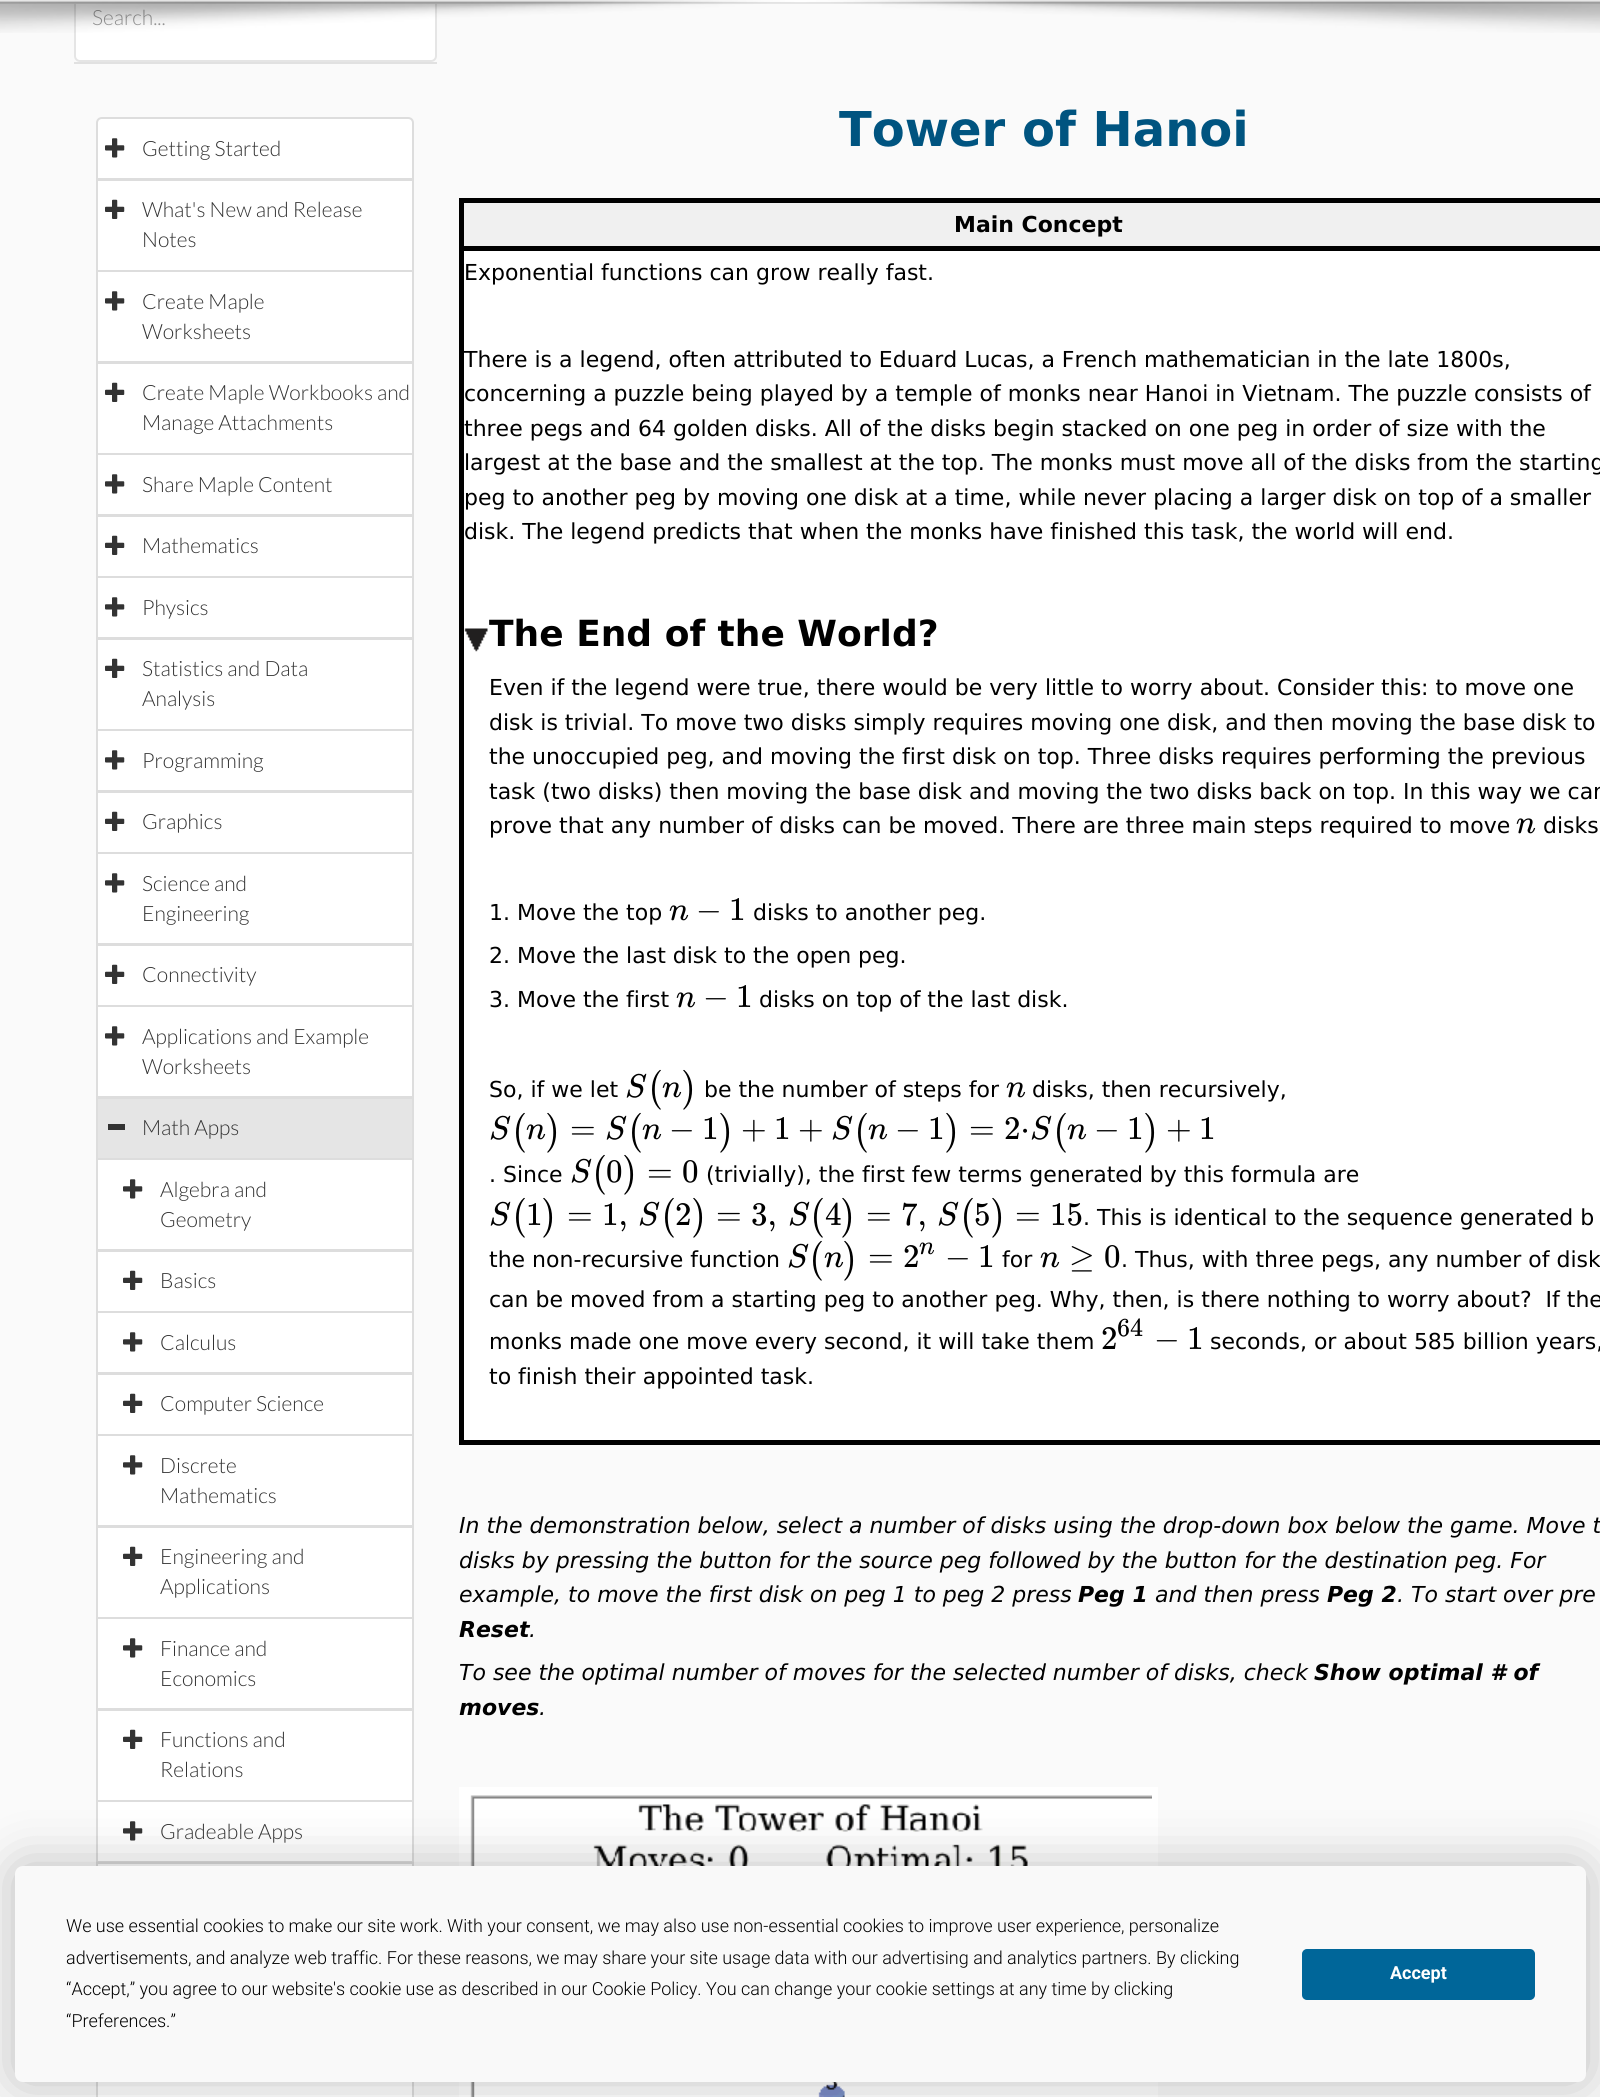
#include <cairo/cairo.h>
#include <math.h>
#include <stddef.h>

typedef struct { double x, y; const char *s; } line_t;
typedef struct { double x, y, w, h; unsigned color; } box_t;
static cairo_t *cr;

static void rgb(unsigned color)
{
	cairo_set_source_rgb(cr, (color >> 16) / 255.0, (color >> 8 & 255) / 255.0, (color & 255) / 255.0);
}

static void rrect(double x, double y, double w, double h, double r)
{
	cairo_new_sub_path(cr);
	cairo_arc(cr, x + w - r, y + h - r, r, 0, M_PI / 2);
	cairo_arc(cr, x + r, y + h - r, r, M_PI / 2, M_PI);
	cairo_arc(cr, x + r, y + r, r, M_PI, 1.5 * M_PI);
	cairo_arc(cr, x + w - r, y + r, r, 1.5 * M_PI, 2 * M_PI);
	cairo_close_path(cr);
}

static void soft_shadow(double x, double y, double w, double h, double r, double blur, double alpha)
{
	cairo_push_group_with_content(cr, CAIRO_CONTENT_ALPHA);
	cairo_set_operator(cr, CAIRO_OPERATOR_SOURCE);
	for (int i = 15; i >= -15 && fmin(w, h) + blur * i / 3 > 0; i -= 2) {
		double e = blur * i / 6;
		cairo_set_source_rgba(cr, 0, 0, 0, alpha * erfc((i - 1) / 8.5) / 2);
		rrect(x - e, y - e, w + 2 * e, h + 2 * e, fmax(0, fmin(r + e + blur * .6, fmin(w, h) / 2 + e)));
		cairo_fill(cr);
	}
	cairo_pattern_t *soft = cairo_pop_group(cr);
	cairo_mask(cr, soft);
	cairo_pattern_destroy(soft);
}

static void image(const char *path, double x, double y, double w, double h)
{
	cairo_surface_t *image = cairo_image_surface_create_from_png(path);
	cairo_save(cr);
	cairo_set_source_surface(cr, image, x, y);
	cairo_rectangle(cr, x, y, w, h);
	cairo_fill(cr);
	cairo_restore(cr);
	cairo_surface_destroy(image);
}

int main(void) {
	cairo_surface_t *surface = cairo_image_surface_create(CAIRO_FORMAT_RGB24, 1600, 2097);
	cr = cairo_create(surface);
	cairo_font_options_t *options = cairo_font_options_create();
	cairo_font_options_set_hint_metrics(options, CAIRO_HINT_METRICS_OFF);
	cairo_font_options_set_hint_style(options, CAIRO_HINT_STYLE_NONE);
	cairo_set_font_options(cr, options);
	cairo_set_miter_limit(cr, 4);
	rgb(0xfafafa);
	cairo_paint(cr);
	rgb(0xffffff);
	rrect(75, -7, 361, 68, 5);
	cairo_fill_preserve(cr);
	rgb(0xe5e5e5);
	cairo_stroke(cr);
	cairo_set_source_rgba(cr, 1, 1, 1, 0.95);
	cairo_rectangle(cr, 0, 0, 1600, 3);
	cairo_fill(cr);
	cairo_set_source_rgba(cr, 0.898, 0.898, 0.898, 0.95);
	cairo_rectangle(cr, 0, 2, 1600, 2);
	cairo_fill(cr);
	rgb(0xe1e1e1);
	cairo_rectangle(cr, 74, 62, 363, 2);
	cairo_fill(cr);
	rgb(0xffffff);
	cairo_new_path(cr);
	cairo_move_to(cr, 102, 118);
	cairo_line_to(cr, 408, 118);
	cairo_curve_to(cr, 411, 118, 413, 120, 413, 123);
	cairo_line_to(cr, 413, 179);
	cairo_line_to(cr, 97, 179);
	cairo_line_to(cr, 97, 123);
	cairo_curve_to(cr, 97, 120, 99, 118, 102, 118);
	cairo_close_path(cr);
	cairo_fill_preserve(cr);
	rgb(0xdddddd);
	cairo_stroke(cr);
	image("img/2.png", 105, 138, 20, 20);
	rgb(0xffffff);
	cairo_rectangle(cr, 97, 180, 316, 91);
	cairo_fill_preserve(cr);
	rgb(0xdddddd);
	cairo_stroke(cr);
	image("img/3.png", 105, 199, 20, 20);
	rgb(0xffffff);
	cairo_rectangle(cr, 97, 271, 316, 91);
	cairo_fill_preserve(cr);
	rgb(0xdddddd);
	cairo_stroke(cr);
	image("img/2.png", 105, 291, 20, 20);
	rgb(0xffffff);
	cairo_rectangle(cr, 97, 363, 316, 91);
	cairo_fill_preserve(cr);
	rgb(0xdddddd);
	cairo_stroke(cr);
	image("img/3.png", 105, 382, 20, 20);
	rgb(0xffffff);
	cairo_rectangle(cr, 97, 454, 316, 61);
	cairo_fill_preserve(cr);
	rgb(0xdddddd);
	cairo_stroke(cr);
	image("img/2.png", 105, 474, 20, 20);
	rgb(0xffffff);
	cairo_rectangle(cr, 97, 516, 316, 61);
	cairo_fill_preserve(cr);
	rgb(0xdddddd);
	cairo_stroke(cr);
	image("img/3.png", 105, 535, 20, 20);
	rgb(0xffffff);
	cairo_rectangle(cr, 97, 577, 316, 61);
	cairo_fill_preserve(cr);
	rgb(0xdddddd);
	cairo_stroke(cr);
	image("img/2.png", 105, 597, 20, 20);
	rgb(0xffffff);
	cairo_rectangle(cr, 97, 639, 316, 91);
	cairo_fill_preserve(cr);
	rgb(0xdddddd);
	cairo_stroke(cr);
	image("img/3.png", 105, 658, 20, 20);
	rgb(0xffffff);
	cairo_rectangle(cr, 97, 730, 316, 61);
	cairo_fill_preserve(cr);
	rgb(0xdddddd);
	cairo_stroke(cr);
	image("img/2.png", 105, 750, 20, 20);
	rgb(0xffffff);
	cairo_rectangle(cr, 97, 792, 316, 61);
	cairo_fill_preserve(cr);
	rgb(0xdddddd);
	cairo_stroke(cr);
	image("img/3.png", 105, 811, 20, 20);
	rgb(0xffffff);
	cairo_rectangle(cr, 97, 853, 316, 91);
	cairo_fill_preserve(cr);
	rgb(0xdddddd);
	cairo_stroke(cr);
	image("img/2.png", 105, 873, 20, 20);
	rgb(0xffffff);
	cairo_rectangle(cr, 97, 945, 316, 61);
	cairo_fill_preserve(cr);
	rgb(0xdddddd);
	cairo_stroke(cr);
	image("img/3.png", 105, 964, 20, 20);
	rgb(0xffffff);
	cairo_rectangle(cr, 97, 1006, 316, 91);
	cairo_fill_preserve(cr);
	rgb(0xdddddd);
	cairo_stroke(cr);
	image("img/2.png", 105, 1026, 20, 20);
	rgb(0xe5e5e5);
	cairo_rectangle(cr, 97, 1098, 316, 61);
	cairo_fill_preserve(cr);
	rgb(0xdddddd);
	cairo_stroke(cr);
	rgb(0x333333);
	cairo_rectangle(cr, 108, 1124, 17, 6);
	cairo_fill(cr);
	rgb(0xffffff);
	cairo_rectangle(cr, 97, 1159, 316, 91);
	cairo_fill_preserve(cr);
	rgb(0xdddddd);
	cairo_stroke(cr);
	image("img/2.png", 123, 1179, 20, 20);
	rgb(0xffffff);
	cairo_rectangle(cr, 97, 1251, 316, 61);
	cairo_fill_preserve(cr);
	rgb(0xdddddd);
	cairo_stroke(cr);
	image("img/3.png", 123, 1270, 20, 20);
	rgb(0xffffff);
	cairo_rectangle(cr, 97, 1312, 316, 61);
	cairo_fill_preserve(cr);
	rgb(0xdddddd);
	cairo_stroke(cr);
	image("img/2.png", 123, 1332, 20, 20);
	rgb(0xffffff);
	cairo_rectangle(cr, 97, 1374, 316, 61);
	cairo_fill_preserve(cr);
	rgb(0xdddddd);
	cairo_stroke(cr);
	image("img/3.png", 123, 1393, 20, 20);
	rgb(0xffffff);
	cairo_rectangle(cr, 97, 1435, 316, 91);
	cairo_fill_preserve(cr);
	rgb(0xdddddd);
	cairo_stroke(cr);
	image("img/2.png", 123, 1455, 20, 20);
	rgb(0xffffff);
	cairo_rectangle(cr, 97, 1527, 316, 91);
	cairo_fill_preserve(cr);
	rgb(0xdddddd);
	cairo_stroke(cr);
	image("img/3.png", 123, 1546, 20, 20);
	rgb(0xffffff);
	cairo_rectangle(cr, 97, 1618, 316, 91);
	cairo_fill_preserve(cr);
	rgb(0xdddddd);
	cairo_stroke(cr);
	image("img/2.png", 123, 1638, 20, 20);
	rgb(0xffffff);
	cairo_rectangle(cr, 97, 1710, 316, 91);
	cairo_fill_preserve(cr);
	rgb(0xdddddd);
	cairo_stroke(cr);
	image("img/3.png", 123, 1729, 20, 20);
	rgb(0xffffff);
	cairo_rectangle(cr, 97, 1801, 316, 61);
	cairo_fill_preserve(cr);
	rgb(0xdddddd);
	cairo_stroke(cr);
	image("img/2.png", 123, 1821, 20, 20);
	rgb(0xffffff);
	cairo_rectangle(cr, 98, 1864, 314, 2);
	cairo_fill(cr);
	cairo_rectangle(cr, 97, 1863, 316, 61);
	rgb(0xdddddd);
	cairo_stroke(cr);
	rgb(0xffffff);
	cairo_rectangle(cr, 98, 2082, 314, 15);
	cairo_fill(cr);
	cairo_rectangle(cr, 97, 2047, 316, 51);
	rgb(0xdddddd);
	cairo_stroke(cr);
	{
		static const box_t items[] = {
			{464, 203, 1136, 43, 0xf0f0f0},
			{459, 198, 1141, 5, 0x000000},
			{459, 246, 1141, 5, 0x000000},
			{459, 1440, 1141, 5, 0x000000},
			{459, 246, 5, 1199, 0x000000},
			{459, 198, 5, 53, 0x000000},
			{464, 251, 1136, 1189, 0xffffff},
		};
		for (size_t i = 0; i < sizeof items / sizeof *items; i++) {
			rgb(items[i].color);
			cairo_rectangle(cr, items[i].x, items[i].y, items[i].w, items[i].h);
			cairo_fill(cr);
		}
	}
	image("img/4.png", 464, 628, 24, 24);
	cairo_rectangle(cr, 459, 1787, 699, 310);
	cairo_fill(cr);
	image("img/5.png", 470, 1795, 682, 302);
	rgb(0x000000);
	soft_shadow(15, 1866, 1571, 216, 8, 26, 0.25);
	rgb(0xf9f9f9);
	rrect(15, 1866, 1571, 216, 8);
	cairo_fill(cr);
	rgb(0x006699);
	rrect(1303, 1950, 231, 49, 4);
	cairo_fill_preserve(cr);
	cairo_stroke(cr);
	cairo_select_font_face(cr, "Lato Light", CAIRO_FONT_SLANT_NORMAL, CAIRO_FONT_WEIGHT_NORMAL);
	cairo_set_font_size(cr, 21);
	rgb(0x999999);
	cairo_move_to(cr, 92, 25);
	cairo_show_text(cr, "Search...");
	image("img/1.png", 0, 0, 1600, 33);
	rgb(0x333333);
	{
		static const line_t items[] = {
			{142, 156, "Getting Started"},
			{142, 217, "What's New and Release"},
			{142, 247, "Notes"},
			{142, 309, "Create Maple"},
			{142, 339, "Worksheets"},
			{142, 400, "Create Maple Workbooks and"},
			{142, 430, "Manage Attachments"},
			{142, 492, "Share Maple Content"},
			{142, 553, "Mathematics"},
			{142, 615, "Physics"},
			{142, 676, "Statistics and Data"},
			{142, 706, "Analysis"},
			{142, 768, "Programming"},
			{142, 829, "Graphics"},
			{142, 891, "Science and"},
			{142, 921, "Engineering"},
			{142, 982, "Connectivity"},
			{142, 1044, "Applications and Example"},
			{142, 1074, "Worksheets"},
			{142, 1135, "Math Apps"},
			{160, 1197, "Algebra and"},
			{160, 1227, "Geometry"},
			{160, 1288, "Basics"},
			{160, 1350, "Calculus"},
			{160, 1411, "Computer Science"},
			{160, 1473, "Discrete"},
			{160, 1503, "Mathematics"},
			{160, 1564, "Engineering and"},
			{160, 1594, "Applications"},
			{160, 1656, "Finance and"},
			{160, 1686, "Economics"},
			{160, 1747, "Functions and"},
			{160, 1777, "Relations"},
			{160, 1839, "Gradeable Apps"},
		};
		for (size_t i = 0; i < sizeof items / sizeof *items; i++) {
			cairo_move_to(cr, items[i].x, items[i].y);
			cairo_show_text(cr, items[i].s);
		}
	}
	cairo_select_font_face(cr, "DejaVu Sans", CAIRO_FONT_SLANT_NORMAL, CAIRO_FONT_WEIGHT_BOLD);
	cairo_set_font_size(cr, 48);
	rgb(0x005480);
	cairo_move_to(cr, 839, 146);
	cairo_show_text(cr, "Tower of Hanoi");
	cairo_set_font_size(cr, 22);
	rgb(0x000000);
	cairo_move_to(cr, 954, 232);
	cairo_show_text(cr, "Main Concept");
	cairo_select_font_face(cr, "DejaVu Sans", CAIRO_FONT_SLANT_NORMAL, CAIRO_FONT_WEIGHT_NORMAL);
	{
		static const line_t items[] = {
			{464, 280, "Exponential functions can grow really fast."},
			{464, 367, "There is a legend, often attributed to Eduard Lucas, a French mathematician in the late 1800s,"},
			{464, 401, "concerning a puzzle being played by a temple of monks near Hanoi in Vietnam. The puzzle consists of"},
			{464, 436, "three pegs and 64 golden disks. All of the disks begin stacked on one peg in order of size with the"},
			{464, 470, "largest at the base and the smallest at the top. The monks must move all of the disks from the starting"},
			{464, 505, "peg to another peg by moving one disk at a time, while never placing a larger disk on top of a smaller"},
			{464, 539, "disk. The legend predicts that when the monks have finished this task, the world will end."},
		};
		for (size_t i = 0; i < sizeof items / sizeof *items; i++) {
			cairo_move_to(cr, items[i].x, items[i].y);
			cairo_show_text(cr, items[i].s);
		}
	}
	cairo_select_font_face(cr, "DejaVu Sans", CAIRO_FONT_SLANT_NORMAL, CAIRO_FONT_WEIGHT_BOLD);
	cairo_set_font_size(cr, 36);
	cairo_move_to(cr, 489, 646);
	cairo_show_text(cr, "The End of the World?");
	cairo_select_font_face(cr, "DejaVu Sans", CAIRO_FONT_SLANT_NORMAL, CAIRO_FONT_WEIGHT_NORMAL);
	cairo_set_font_size(cr, 22);
	{
		static const line_t items[] = {
			{489, 695, "Even if the legend were true, there would be very little to worry about. Consider this: to move one"},
			{489, 730, "disk is trivial. To move two disks simply requires moving one disk, and then moving the base disk to"},
			{489, 764, "the unoccupied peg, and moving the first disk on top. Three disks requires performing the previous"},
			{489, 799, "task (two disks) then moving the base disk and moving the two disks back on top. In this way we can"},
			{489, 833, "prove that any number of disks can be moved. There are three main steps required to move"},
		};
		for (size_t i = 0; i < sizeof items / sizeof *items; i++) {
			cairo_move_to(cr, items[i].x, items[i].y);
			cairo_show_text(cr, items[i].s);
		}
	}
	cairo_select_font_face(cr, "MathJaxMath", CAIRO_FONT_SLANT_ITALIC, CAIRO_FONT_WEIGHT_NORMAL);
	cairo_set_font_size(cr, 33);
	cairo_move_to(cr, 1516, 833);
	cairo_show_text(cr, "n");
	cairo_select_font_face(cr, "DejaVu Sans", CAIRO_FONT_SLANT_NORMAL, CAIRO_FONT_WEIGHT_NORMAL);
	cairo_set_font_size(cr, 22);
	cairo_move_to(cr, 1543, 833);
	cairo_show_text(cr, "disks");
	cairo_move_to(cr, 489, 920);
	cairo_show_text(cr, "1. Move the top");
	cairo_select_font_face(cr, "MathJaxMath", CAIRO_FONT_SLANT_ITALIC, CAIRO_FONT_WEIGHT_NORMAL);
	cairo_set_font_size(cr, 33);
	cairo_move_to(cr, 669, 920);
	cairo_show_text(cr, "n");
	cairo_select_font_face(cr, "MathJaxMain", CAIRO_FONT_SLANT_NORMAL, CAIRO_FONT_WEIGHT_NORMAL);
	cairo_move_to(cr, 696, 920);
	cairo_show_text(cr, "−");
	cairo_move_to(cr, 729, 920);
	cairo_show_text(cr, "1");
	cairo_select_font_face(cr, "DejaVu Sans", CAIRO_FONT_SLANT_NORMAL, CAIRO_FONT_WEIGHT_NORMAL);
	cairo_set_font_size(cr, 22);
	{
		static const line_t items[] = {
			{753, 920, "disks to another peg."},
			{489, 963, "2. Move the last disk to the open peg."},
			{489, 1007, "3. Move the first"},
		};
		for (size_t i = 0; i < sizeof items / sizeof *items; i++) {
			cairo_move_to(cr, items[i].x, items[i].y);
			cairo_show_text(cr, items[i].s);
		}
	}
	cairo_select_font_face(cr, "MathJaxMath", CAIRO_FONT_SLANT_ITALIC, CAIRO_FONT_WEIGHT_NORMAL);
	cairo_set_font_size(cr, 33);
	cairo_move_to(cr, 676, 1007);
	cairo_show_text(cr, "n");
	cairo_select_font_face(cr, "MathJaxMain", CAIRO_FONT_SLANT_NORMAL, CAIRO_FONT_WEIGHT_NORMAL);
	cairo_move_to(cr, 703, 1007);
	cairo_show_text(cr, "−");
	cairo_move_to(cr, 736, 1007);
	cairo_show_text(cr, "1");
	cairo_select_font_face(cr, "DejaVu Sans", CAIRO_FONT_SLANT_NORMAL, CAIRO_FONT_WEIGHT_NORMAL);
	cairo_set_font_size(cr, 22);
	cairo_move_to(cr, 759, 1007);
	cairo_show_text(cr, "disks on top of the last disk.");
	cairo_move_to(cr, 489, 1097);
	cairo_show_text(cr, "So, if we let");
	cairo_select_font_face(cr, "MathJaxMath", CAIRO_FONT_SLANT_ITALIC, CAIRO_FONT_WEIGHT_NORMAL);
	cairo_set_font_size(cr, 33);
	cairo_move_to(cr, 625, 1097);
	cairo_show_text(cr, "S");
	cairo_select_font_face(cr, "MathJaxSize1", CAIRO_FONT_SLANT_NORMAL, CAIRO_FONT_WEIGHT_NORMAL);
	cairo_move_to(cr, 647, 1098);
	cairo_show_text(cr, "(");
	cairo_select_font_face(cr, "MathJaxMath", CAIRO_FONT_SLANT_ITALIC, CAIRO_FONT_WEIGHT_NORMAL);
	cairo_move_to(cr, 662, 1097);
	cairo_show_text(cr, "n");
	cairo_select_font_face(cr, "MathJaxSize1", CAIRO_FONT_SLANT_NORMAL, CAIRO_FONT_WEIGHT_NORMAL);
	cairo_move_to(cr, 682, 1098);
	cairo_show_text(cr, ")");
	cairo_select_font_face(cr, "DejaVu Sans", CAIRO_FONT_SLANT_NORMAL, CAIRO_FONT_WEIGHT_NORMAL);
	cairo_set_font_size(cr, 22);
	cairo_move_to(cr, 704, 1097);
	cairo_show_text(cr, "be the number of steps for");
	cairo_select_font_face(cr, "MathJaxMath", CAIRO_FONT_SLANT_ITALIC, CAIRO_FONT_WEIGHT_NORMAL);
	cairo_set_font_size(cr, 33);
	cairo_move_to(cr, 1006, 1097);
	cairo_show_text(cr, "n");
	cairo_select_font_face(cr, "DejaVu Sans", CAIRO_FONT_SLANT_NORMAL, CAIRO_FONT_WEIGHT_NORMAL);
	cairo_set_font_size(cr, 22);
	cairo_move_to(cr, 1032, 1097);
	cairo_show_text(cr, "disks, then recursively,");
	cairo_select_font_face(cr, "MathJaxMath", CAIRO_FONT_SLANT_ITALIC, CAIRO_FONT_WEIGHT_NORMAL);
	cairo_set_font_size(cr, 33);
	cairo_move_to(cr, 489, 1139);
	cairo_show_text(cr, "S");
	cairo_select_font_face(cr, "MathJaxSize1", CAIRO_FONT_SLANT_NORMAL, CAIRO_FONT_WEIGHT_NORMAL);
	cairo_move_to(cr, 511, 1141);
	cairo_show_text(cr, "(");
	cairo_select_font_face(cr, "MathJaxMath", CAIRO_FONT_SLANT_ITALIC, CAIRO_FONT_WEIGHT_NORMAL);
	cairo_move_to(cr, 526, 1139);
	cairo_show_text(cr, "n");
	cairo_select_font_face(cr, "MathJaxSize1", CAIRO_FONT_SLANT_NORMAL, CAIRO_FONT_WEIGHT_NORMAL);
	cairo_move_to(cr, 546, 1141);
	cairo_show_text(cr, ")");
	cairo_select_font_face(cr, "MathJaxMain", CAIRO_FONT_SLANT_NORMAL, CAIRO_FONT_WEIGHT_NORMAL);
	cairo_move_to(cr, 570, 1139);
	cairo_show_text(cr, "=");
	cairo_select_font_face(cr, "MathJaxMath", CAIRO_FONT_SLANT_ITALIC, CAIRO_FONT_WEIGHT_NORMAL);
	cairo_move_to(cr, 605, 1139);
	cairo_show_text(cr, "S");
	cairo_select_font_face(cr, "MathJaxSize1", CAIRO_FONT_SLANT_NORMAL, CAIRO_FONT_WEIGHT_NORMAL);
	cairo_move_to(cr, 627, 1141);
	cairo_show_text(cr, "(");
	cairo_select_font_face(cr, "MathJaxMath", CAIRO_FONT_SLANT_ITALIC, CAIRO_FONT_WEIGHT_NORMAL);
	cairo_move_to(cr, 642, 1139);
	cairo_show_text(cr, "n");
	cairo_select_font_face(cr, "MathJaxMain", CAIRO_FONT_SLANT_NORMAL, CAIRO_FONT_WEIGHT_NORMAL);
	cairo_move_to(cr, 669, 1139);
	cairo_show_text(cr, "−");
	cairo_move_to(cr, 702, 1139);
	cairo_show_text(cr, "1");
	cairo_select_font_face(cr, "MathJaxSize1", CAIRO_FONT_SLANT_NORMAL, CAIRO_FONT_WEIGHT_NORMAL);
	cairo_move_to(cr, 719, 1141);
	cairo_show_text(cr, ")");
	cairo_select_font_face(cr, "MathJaxMain", CAIRO_FONT_SLANT_NORMAL, CAIRO_FONT_WEIGHT_NORMAL);
	{
		static const line_t items[] = {
			{741, 1139, "+"},
			{774, 1139, "1"},
			{798, 1139, "+"},
		};
		for (size_t i = 0; i < sizeof items / sizeof *items; i++) {
			cairo_move_to(cr, items[i].x, items[i].y);
			cairo_show_text(cr, items[i].s);
		}
	}
	cairo_select_font_face(cr, "MathJaxMath", CAIRO_FONT_SLANT_ITALIC, CAIRO_FONT_WEIGHT_NORMAL);
	cairo_move_to(cr, 831, 1139);
	cairo_show_text(cr, "S");
	cairo_select_font_face(cr, "MathJaxSize1", CAIRO_FONT_SLANT_NORMAL, CAIRO_FONT_WEIGHT_NORMAL);
	cairo_move_to(cr, 853, 1141);
	cairo_show_text(cr, "(");
	cairo_select_font_face(cr, "MathJaxMath", CAIRO_FONT_SLANT_ITALIC, CAIRO_FONT_WEIGHT_NORMAL);
	cairo_move_to(cr, 868, 1139);
	cairo_show_text(cr, "n");
	cairo_select_font_face(cr, "MathJaxMain", CAIRO_FONT_SLANT_NORMAL, CAIRO_FONT_WEIGHT_NORMAL);
	cairo_move_to(cr, 895, 1139);
	cairo_show_text(cr, "−");
	cairo_move_to(cr, 928, 1139);
	cairo_show_text(cr, "1");
	cairo_select_font_face(cr, "MathJaxSize1", CAIRO_FONT_SLANT_NORMAL, CAIRO_FONT_WEIGHT_NORMAL);
	cairo_move_to(cr, 945, 1141);
	cairo_show_text(cr, ")");
	cairo_select_font_face(cr, "MathJaxMain", CAIRO_FONT_SLANT_NORMAL, CAIRO_FONT_WEIGHT_NORMAL);
	cairo_move_to(cr, 969, 1139);
	cairo_show_text(cr, "=");
	cairo_move_to(cr, 1004, 1139);
	cairo_show_text(cr, "2⋅");
	cairo_select_font_face(cr, "MathJaxMath", CAIRO_FONT_SLANT_ITALIC, CAIRO_FONT_WEIGHT_NORMAL);
	cairo_move_to(cr, 1030, 1139);
	cairo_show_text(cr, "S");
	cairo_select_font_face(cr, "MathJaxSize1", CAIRO_FONT_SLANT_NORMAL, CAIRO_FONT_WEIGHT_NORMAL);
	cairo_move_to(cr, 1052, 1141);
	cairo_show_text(cr, "(");
	cairo_select_font_face(cr, "MathJaxMath", CAIRO_FONT_SLANT_ITALIC, CAIRO_FONT_WEIGHT_NORMAL);
	cairo_move_to(cr, 1067, 1139);
	cairo_show_text(cr, "n");
	cairo_select_font_face(cr, "MathJaxMain", CAIRO_FONT_SLANT_NORMAL, CAIRO_FONT_WEIGHT_NORMAL);
	cairo_move_to(cr, 1094, 1139);
	cairo_show_text(cr, "−");
	cairo_move_to(cr, 1127, 1139);
	cairo_show_text(cr, "1");
	cairo_select_font_face(cr, "MathJaxSize1", CAIRO_FONT_SLANT_NORMAL, CAIRO_FONT_WEIGHT_NORMAL);
	cairo_move_to(cr, 1144, 1141);
	cairo_show_text(cr, ")");
	cairo_select_font_face(cr, "MathJaxMain", CAIRO_FONT_SLANT_NORMAL, CAIRO_FONT_WEIGHT_NORMAL);
	cairo_move_to(cr, 1166, 1139);
	cairo_show_text(cr, "+");
	cairo_move_to(cr, 1199, 1139);
	cairo_show_text(cr, "1");
	cairo_select_font_face(cr, "DejaVu Sans", CAIRO_FONT_SLANT_NORMAL, CAIRO_FONT_WEIGHT_NORMAL);
	cairo_set_font_size(cr, 22);
	cairo_move_to(cr, 489, 1182);
	cairo_show_text(cr, ". Since");
	cairo_select_font_face(cr, "MathJaxMath", CAIRO_FONT_SLANT_ITALIC, CAIRO_FONT_WEIGHT_NORMAL);
	cairo_set_font_size(cr, 33);
	cairo_move_to(cr, 570, 1182);
	cairo_show_text(cr, "S");
	cairo_select_font_face(cr, "MathJaxSize1", CAIRO_FONT_SLANT_NORMAL, CAIRO_FONT_WEIGHT_NORMAL);
	cairo_move_to(cr, 591, 1183);
	cairo_show_text(cr, "(");
	cairo_select_font_face(cr, "MathJaxMain", CAIRO_FONT_SLANT_NORMAL, CAIRO_FONT_WEIGHT_NORMAL);
	cairo_move_to(cr, 606, 1182);
	cairo_show_text(cr, "0");
	cairo_select_font_face(cr, "MathJaxSize1", CAIRO_FONT_SLANT_NORMAL, CAIRO_FONT_WEIGHT_NORMAL);
	cairo_move_to(cr, 623, 1183);
	cairo_show_text(cr, ")");
	cairo_select_font_face(cr, "MathJaxMain", CAIRO_FONT_SLANT_NORMAL, CAIRO_FONT_WEIGHT_NORMAL);
	cairo_move_to(cr, 647, 1182);
	cairo_show_text(cr, "=");
	cairo_move_to(cr, 682, 1182);
	cairo_show_text(cr, "0");
	cairo_select_font_face(cr, "DejaVu Sans", CAIRO_FONT_SLANT_NORMAL, CAIRO_FONT_WEIGHT_NORMAL);
	cairo_set_font_size(cr, 22);
	cairo_move_to(cr, 706, 1182);
	cairo_show_text(cr, "(trivially), the first few terms generated by this formula are");
	cairo_select_font_face(cr, "MathJaxMath", CAIRO_FONT_SLANT_ITALIC, CAIRO_FONT_WEIGHT_NORMAL);
	cairo_set_font_size(cr, 33);
	cairo_move_to(cr, 489, 1225);
	cairo_show_text(cr, "S");
	cairo_select_font_face(cr, "MathJaxSize1", CAIRO_FONT_SLANT_NORMAL, CAIRO_FONT_WEIGHT_NORMAL);
	cairo_move_to(cr, 511, 1226);
	cairo_show_text(cr, "(");
	cairo_select_font_face(cr, "MathJaxMain", CAIRO_FONT_SLANT_NORMAL, CAIRO_FONT_WEIGHT_NORMAL);
	cairo_move_to(cr, 526, 1225);
	cairo_show_text(cr, "1");
	cairo_select_font_face(cr, "MathJaxSize1", CAIRO_FONT_SLANT_NORMAL, CAIRO_FONT_WEIGHT_NORMAL);
	cairo_move_to(cr, 542, 1226);
	cairo_show_text(cr, ")");
	cairo_select_font_face(cr, "MathJaxMain", CAIRO_FONT_SLANT_NORMAL, CAIRO_FONT_WEIGHT_NORMAL);
	cairo_move_to(cr, 567, 1225);
	cairo_show_text(cr, "=");
	cairo_move_to(cr, 602, 1225);
	cairo_show_text(cr, "1,");
	cairo_select_font_face(cr, "MathJaxMath", CAIRO_FONT_SLANT_ITALIC, CAIRO_FONT_WEIGHT_NORMAL);
	cairo_move_to(cr, 638, 1225);
	cairo_show_text(cr, "S");
	cairo_select_font_face(cr, "MathJaxSize1", CAIRO_FONT_SLANT_NORMAL, CAIRO_FONT_WEIGHT_NORMAL);
	cairo_move_to(cr, 660, 1226);
	cairo_show_text(cr, "(");
	cairo_select_font_face(cr, "MathJaxMain", CAIRO_FONT_SLANT_NORMAL, CAIRO_FONT_WEIGHT_NORMAL);
	cairo_move_to(cr, 675, 1225);
	cairo_show_text(cr, "2");
	cairo_select_font_face(cr, "MathJaxSize1", CAIRO_FONT_SLANT_NORMAL, CAIRO_FONT_WEIGHT_NORMAL);
	cairo_move_to(cr, 692, 1226);
	cairo_show_text(cr, ")");
	cairo_select_font_face(cr, "MathJaxMain", CAIRO_FONT_SLANT_NORMAL, CAIRO_FONT_WEIGHT_NORMAL);
	cairo_move_to(cr, 716, 1225);
	cairo_show_text(cr, "=");
	cairo_move_to(cr, 751, 1225);
	cairo_show_text(cr, "3,");
	cairo_select_font_face(cr, "MathJaxMath", CAIRO_FONT_SLANT_ITALIC, CAIRO_FONT_WEIGHT_NORMAL);
	cairo_move_to(cr, 788, 1225);
	cairo_show_text(cr, "S");
	cairo_select_font_face(cr, "MathJaxSize1", CAIRO_FONT_SLANT_NORMAL, CAIRO_FONT_WEIGHT_NORMAL);
	cairo_move_to(cr, 809, 1226);
	cairo_show_text(cr, "(");
	cairo_select_font_face(cr, "MathJaxMain", CAIRO_FONT_SLANT_NORMAL, CAIRO_FONT_WEIGHT_NORMAL);
	cairo_move_to(cr, 825, 1225);
	cairo_show_text(cr, "4");
	cairo_select_font_face(cr, "MathJaxSize1", CAIRO_FONT_SLANT_NORMAL, CAIRO_FONT_WEIGHT_NORMAL);
	cairo_move_to(cr, 841, 1226);
	cairo_show_text(cr, ")");
	cairo_select_font_face(cr, "MathJaxMain", CAIRO_FONT_SLANT_NORMAL, CAIRO_FONT_WEIGHT_NORMAL);
	cairo_move_to(cr, 866, 1225);
	cairo_show_text(cr, "=");
	cairo_move_to(cr, 901, 1225);
	cairo_show_text(cr, "7,");
	cairo_select_font_face(cr, "MathJaxMath", CAIRO_FONT_SLANT_ITALIC, CAIRO_FONT_WEIGHT_NORMAL);
	cairo_move_to(cr, 937, 1225);
	cairo_show_text(cr, "S");
	cairo_select_font_face(cr, "MathJaxSize1", CAIRO_FONT_SLANT_NORMAL, CAIRO_FONT_WEIGHT_NORMAL);
	cairo_move_to(cr, 959, 1226);
	cairo_show_text(cr, "(");
	cairo_select_font_face(cr, "MathJaxMain", CAIRO_FONT_SLANT_NORMAL, CAIRO_FONT_WEIGHT_NORMAL);
	cairo_move_to(cr, 974, 1225);
	cairo_show_text(cr, "5");
	cairo_select_font_face(cr, "MathJaxSize1", CAIRO_FONT_SLANT_NORMAL, CAIRO_FONT_WEIGHT_NORMAL);
	cairo_move_to(cr, 991, 1226);
	cairo_show_text(cr, ")");
	cairo_select_font_face(cr, "MathJaxMain", CAIRO_FONT_SLANT_NORMAL, CAIRO_FONT_WEIGHT_NORMAL);
	cairo_move_to(cr, 1015, 1225);
	cairo_show_text(cr, "=");
	cairo_move_to(cr, 1050, 1225);
	cairo_show_text(cr, "15");
	cairo_select_font_face(cr, "DejaVu Sans", CAIRO_FONT_SLANT_NORMAL, CAIRO_FONT_WEIGHT_NORMAL);
	cairo_set_font_size(cr, 22);
	cairo_move_to(cr, 1083, 1225);
	cairo_show_text(cr, ". This is identical to the sequence generated b");
	cairo_move_to(cr, 489, 1267);
	cairo_show_text(cr, "the non-recursive function");
	cairo_select_font_face(cr, "MathJaxMath", CAIRO_FONT_SLANT_ITALIC, CAIRO_FONT_WEIGHT_NORMAL);
	cairo_set_font_size(cr, 33);
	cairo_move_to(cr, 787, 1267);
	cairo_show_text(cr, "S");
	cairo_select_font_face(cr, "MathJaxSize1", CAIRO_FONT_SLANT_NORMAL, CAIRO_FONT_WEIGHT_NORMAL);
	cairo_move_to(cr, 808, 1269);
	cairo_show_text(cr, "(");
	cairo_select_font_face(cr, "MathJaxMath", CAIRO_FONT_SLANT_ITALIC, CAIRO_FONT_WEIGHT_NORMAL);
	cairo_move_to(cr, 824, 1267);
	cairo_show_text(cr, "n");
	cairo_select_font_face(cr, "MathJaxSize1", CAIRO_FONT_SLANT_NORMAL, CAIRO_FONT_WEIGHT_NORMAL);
	cairo_move_to(cr, 843, 1269);
	cairo_show_text(cr, ")");
	cairo_select_font_face(cr, "MathJaxMain", CAIRO_FONT_SLANT_NORMAL, CAIRO_FONT_WEIGHT_NORMAL);
	cairo_move_to(cr, 868, 1267);
	cairo_show_text(cr, "=");
	cairo_move_to(cr, 903, 1267);
	cairo_show_text(cr, "2");
	cairo_select_font_face(cr, "MathJaxMath", CAIRO_FONT_SLANT_ITALIC, CAIRO_FONT_WEIGHT_NORMAL);
	cairo_set_font_size(cr, 26);
	cairo_move_to(cr, 919, 1254);
	cairo_show_text(cr, "n");
	cairo_select_font_face(cr, "MathJaxMain", CAIRO_FONT_SLANT_NORMAL, CAIRO_FONT_WEIGHT_NORMAL);
	cairo_set_font_size(cr, 33);
	cairo_move_to(cr, 945, 1267);
	cairo_show_text(cr, "−");
	cairo_move_to(cr, 978, 1267);
	cairo_show_text(cr, "1");
	cairo_select_font_face(cr, "DejaVu Sans", CAIRO_FONT_SLANT_NORMAL, CAIRO_FONT_WEIGHT_NORMAL);
	cairo_set_font_size(cr, 22);
	cairo_move_to(cr, 1002, 1267);
	cairo_show_text(cr, "for");
	cairo_select_font_face(cr, "MathJaxMath", CAIRO_FONT_SLANT_ITALIC, CAIRO_FONT_WEIGHT_NORMAL);
	cairo_set_font_size(cr, 33);
	cairo_move_to(cr, 1040, 1267);
	cairo_show_text(cr, "n");
	cairo_select_font_face(cr, "MathJaxMain", CAIRO_FONT_SLANT_NORMAL, CAIRO_FONT_WEIGHT_NORMAL);
	cairo_move_to(cr, 1069, 1267);
	cairo_show_text(cr, "≥");
	cairo_move_to(cr, 1104, 1267);
	cairo_show_text(cr, "0");
	cairo_select_font_face(cr, "DejaVu Sans", CAIRO_FONT_SLANT_NORMAL, CAIRO_FONT_WEIGHT_NORMAL);
	cairo_set_font_size(cr, 22);
	{
		static const line_t items[] = {
			{1121, 1267, ". Thus, with three pegs, any number of disk"},
			{489, 1307, "can be moved from a starting peg to another peg. Why, then, is there nothing to worry about?  If the"},
			{489, 1349, "monks made one move every second, it will take them"},
		};
		for (size_t i = 0; i < sizeof items / sizeof *items; i++) {
			cairo_move_to(cr, items[i].x, items[i].y);
			cairo_show_text(cr, items[i].s);
		}
	}
	cairo_select_font_face(cr, "MathJaxMain", CAIRO_FONT_SLANT_NORMAL, CAIRO_FONT_WEIGHT_NORMAL);
	cairo_set_font_size(cr, 33);
	cairo_move_to(cr, 1101, 1349);
	cairo_show_text(cr, "2");
	cairo_set_font_size(cr, 26);
	cairo_move_to(cr, 1117, 1336);
	cairo_show_text(cr, "64");
	cairo_set_font_size(cr, 33);
	cairo_move_to(cr, 1154, 1349);
	cairo_show_text(cr, "−");
	cairo_move_to(cr, 1187, 1349);
	cairo_show_text(cr, "1");
	cairo_select_font_face(cr, "DejaVu Sans", CAIRO_FONT_SLANT_NORMAL, CAIRO_FONT_WEIGHT_NORMAL);
	cairo_set_font_size(cr, 22);
	cairo_move_to(cr, 1210, 1349);
	cairo_show_text(cr, "seconds, or about 585 billion years,");
	cairo_move_to(cr, 489, 1384);
	cairo_show_text(cr, "to finish their appointed task.");
	cairo_select_font_face(cr, "DejaVu Sans", CAIRO_FONT_SLANT_ITALIC, CAIRO_FONT_WEIGHT_NORMAL);
	{
		static const line_t items[] = {
			{459, 1533, "In the demonstration below, select a number of disks using the drop-down box below the game. Move t"},
			{459, 1568, "disks by pressing the button for the source peg followed by the button for the destination peg. For"},
			{459, 1602, "example, to move the first disk on peg 1 to peg 2 press"},
		};
		for (size_t i = 0; i < sizeof items / sizeof *items; i++) {
			cairo_move_to(cr, items[i].x, items[i].y);
			cairo_show_text(cr, items[i].s);
		}
	}
	cairo_select_font_face(cr, "DejaVu Sans", CAIRO_FONT_SLANT_ITALIC, CAIRO_FONT_WEIGHT_BOLD);
	cairo_move_to(cr, 1078, 1602);
	cairo_show_text(cr, "Peg 1");
	cairo_select_font_face(cr, "DejaVu Sans", CAIRO_FONT_SLANT_ITALIC, CAIRO_FONT_WEIGHT_NORMAL);
	cairo_move_to(cr, 1155, 1602);
	cairo_show_text(cr, "and then press");
	cairo_select_font_face(cr, "DejaVu Sans", CAIRO_FONT_SLANT_ITALIC, CAIRO_FONT_WEIGHT_BOLD);
	cairo_move_to(cr, 1327, 1602);
	cairo_show_text(cr, "Peg 2");
	cairo_select_font_face(cr, "DejaVu Sans", CAIRO_FONT_SLANT_ITALIC, CAIRO_FONT_WEIGHT_NORMAL);
	cairo_move_to(cr, 1397, 1602);
	cairo_show_text(cr, ". To start over pre");
	cairo_select_font_face(cr, "DejaVu Sans", CAIRO_FONT_SLANT_ITALIC, CAIRO_FONT_WEIGHT_BOLD);
	cairo_move_to(cr, 459, 1637);
	cairo_show_text(cr, "Reset");
	cairo_select_font_face(cr, "DejaVu Sans", CAIRO_FONT_SLANT_ITALIC, CAIRO_FONT_WEIGHT_NORMAL);
	cairo_move_to(cr, 529, 1637);
	cairo_show_text(cr, ".");
	cairo_move_to(cr, 459, 1680);
	cairo_show_text(cr, "To see the optimal number of moves for the selected number of disks, check");
	cairo_select_font_face(cr, "DejaVu Sans", CAIRO_FONT_SLANT_ITALIC, CAIRO_FONT_WEIGHT_BOLD);
	cairo_move_to(cr, 1314, 1680);
	cairo_show_text(cr, "Show optimal # of");
	cairo_move_to(cr, 459, 1715);
	cairo_show_text(cr, "moves");
	cairo_select_font_face(cr, "DejaVu Sans", CAIRO_FONT_SLANT_ITALIC, CAIRO_FONT_WEIGHT_NORMAL);
	cairo_move_to(cr, 539, 1715);
	cairo_show_text(cr, ".");
	cairo_select_font_face(cr, "Roboto Light", CAIRO_FONT_SLANT_NORMAL, CAIRO_FONT_WEIGHT_NORMAL);
	cairo_set_font_size(cr, 18);
	{
		static const line_t items[] = {
			{66, 1932, "We use essential cookies to make our site work. With your consent, we may also use non-essential cookies to improve user experience, personalize"},
			{66, 1964, "advertisements, and analyze web traffic. For these reasons, we may share your site usage data with our advertising and analytics partners. By clicking"},
			{66, 1995, "“Accept,” you agree to our website's cookie use as described in our Cookie Policy. You can change your cookie settings at any time by clicking"},
			{66, 2027, "“Preferences.”"},
		};
		for (size_t i = 0; i < sizeof items / sizeof *items; i++) {
			cairo_move_to(cr, items[i].x, items[i].y);
			cairo_show_text(cr, items[i].s);
		}
	}
	cairo_select_font_face(cr, "Roboto", CAIRO_FONT_SLANT_NORMAL, CAIRO_FONT_WEIGHT_BOLD);
	rgb(0xffffff);
	cairo_move_to(cr, 1390, 1979);
	cairo_show_text(cr, "Accept");
	cairo_surface_write_to_png(surface, "page.png");
	cairo_font_options_destroy(options);
	cairo_destroy(cr);
	cairo_surface_destroy(surface);
	return 0;
}
